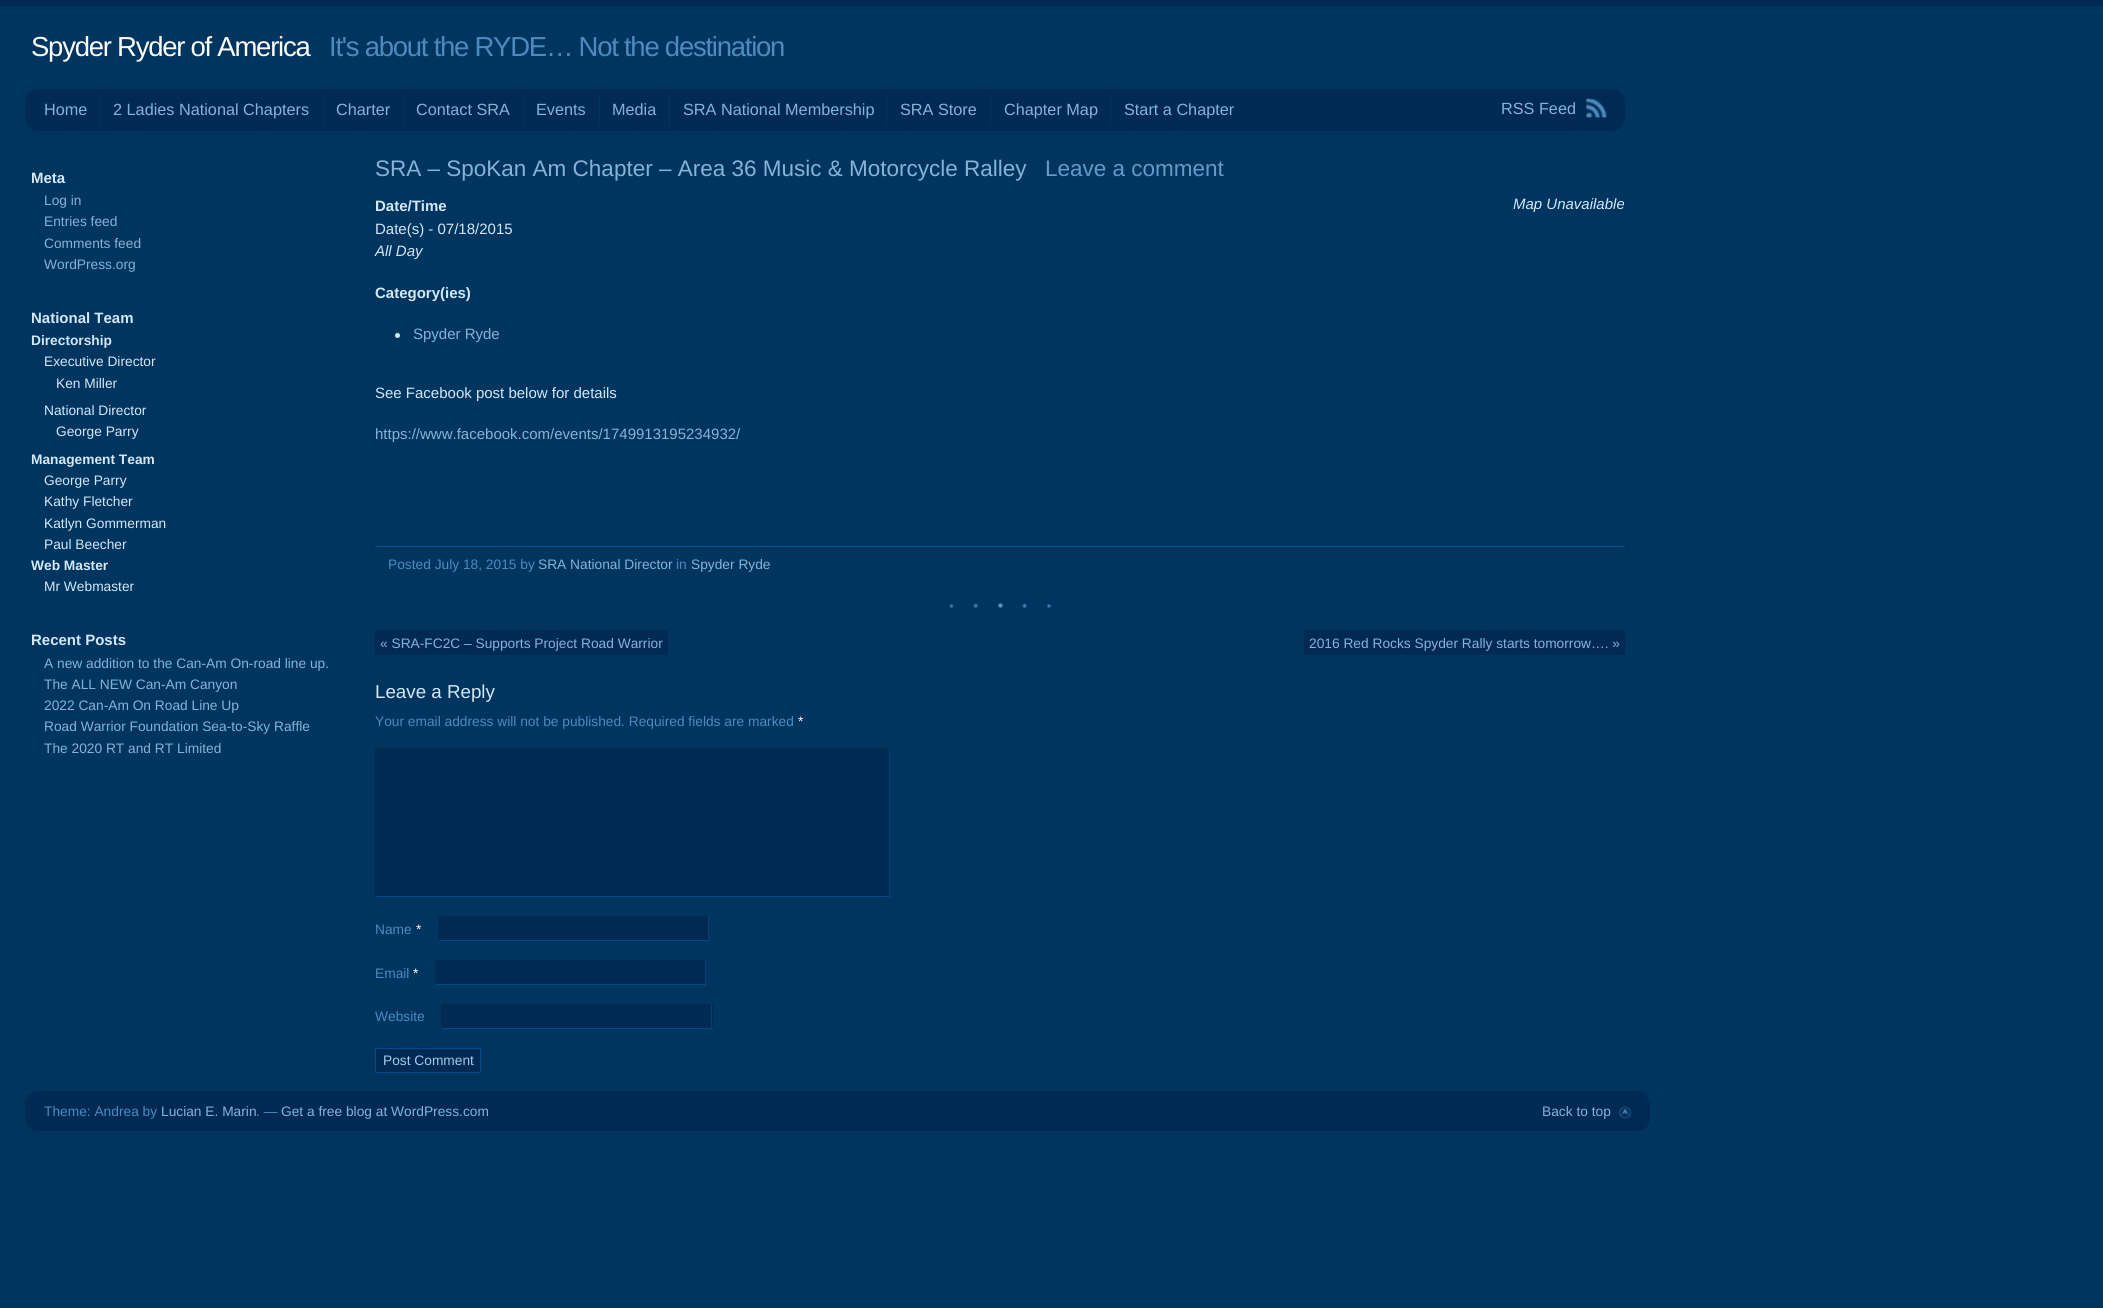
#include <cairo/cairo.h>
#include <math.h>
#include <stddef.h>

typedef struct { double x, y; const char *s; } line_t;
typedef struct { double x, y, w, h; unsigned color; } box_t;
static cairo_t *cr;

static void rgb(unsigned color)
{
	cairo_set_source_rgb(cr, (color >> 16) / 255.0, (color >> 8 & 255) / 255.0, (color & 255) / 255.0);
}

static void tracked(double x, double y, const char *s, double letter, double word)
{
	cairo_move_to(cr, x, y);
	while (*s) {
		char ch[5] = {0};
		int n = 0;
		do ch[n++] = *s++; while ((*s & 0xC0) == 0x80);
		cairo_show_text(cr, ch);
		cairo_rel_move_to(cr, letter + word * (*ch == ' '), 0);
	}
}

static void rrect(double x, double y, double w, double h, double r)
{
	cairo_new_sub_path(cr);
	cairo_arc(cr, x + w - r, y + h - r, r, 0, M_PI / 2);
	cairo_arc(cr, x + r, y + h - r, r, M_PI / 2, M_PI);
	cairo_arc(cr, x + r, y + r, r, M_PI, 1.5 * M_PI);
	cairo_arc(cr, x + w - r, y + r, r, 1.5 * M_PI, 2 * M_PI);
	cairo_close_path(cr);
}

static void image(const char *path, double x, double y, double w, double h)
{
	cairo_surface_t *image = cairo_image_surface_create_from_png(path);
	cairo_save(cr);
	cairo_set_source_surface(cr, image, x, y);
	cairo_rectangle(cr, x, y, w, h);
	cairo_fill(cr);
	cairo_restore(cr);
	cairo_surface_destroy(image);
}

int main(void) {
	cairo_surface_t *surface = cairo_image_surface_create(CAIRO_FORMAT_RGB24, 2103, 1308);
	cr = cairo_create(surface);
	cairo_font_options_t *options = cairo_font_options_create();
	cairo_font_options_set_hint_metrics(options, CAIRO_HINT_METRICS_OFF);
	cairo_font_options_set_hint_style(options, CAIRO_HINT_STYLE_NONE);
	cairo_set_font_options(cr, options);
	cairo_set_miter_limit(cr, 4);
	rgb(0x00355f);
	cairo_paint(cr);
	rgb(0x002a53);
	cairo_rectangle(cr, 0, 0, 2103, 6);
	cairo_fill(cr);
	rrect(25, 89, 1600, 42, 13);
	cairo_fill(cr);
	{
		static const box_t items[] = {
			{100, 95, 1, 30, 0x00355f},
			{323, 95, 1, 30, 0x00355f},
			{403, 95, 1, 30, 0x00355f},
			{523, 95, 1, 30, 0x00355f},
			{599, 95, 1, 30, 0x00355f},
			{669, 95, 1, 30, 0x00355f},
			{886, 95, 1, 30, 0x00355f},
			{990, 95, 1, 30, 0x00355f},
			{1110, 95, 1, 30, 0x00355f},
		};
		for (size_t i = 0; i < sizeof items / sizeof *items; i++) {
			rgb(items[i].color);
			cairo_rectangle(cr, items[i].x, items[i].y, items[i].w, items[i].h);
			cairo_fill(cr);
		}
	}
	image("img/1.png", 1586, 98, 21, 20);
	rgb(0xd4e7f7);
	cairo_arc(cr, 397.5, 335.5, 2.5, 0, 2 * M_PI);
	cairo_fill(cr);
	image("img/2.png", 949, 602, 103, 6);
	{
		static const box_t items[] = {
			{375, 546, 1250, 1, 0x005595},
			{375, 630, 293, 25, 0x002a53},
			{1304, 630, 321, 25, 0x002a53},
			{376, 749, 513, 149, 0x002a53},
			{375, 748, 515, 1, 0x01284e},
			{889, 748, 1, 150, 0x004177},
			{375, 896, 515, 1, 0x004b8d},
			{375, 748, 1, 150, 0x01284e},
			{439, 917, 269, 23, 0x002a53},
			{438, 916, 271, 1, 0x01284e},
			{708, 916, 1, 25, 0x004177},
			{438, 940, 271, 1, 0x004b8d},
			{438, 916, 1, 25, 0x01284e},
			{436, 961, 269, 23, 0x002a53},
			{435, 960, 271, 1, 0x01284e},
			{705, 960, 1, 25, 0x004177},
			{435, 984, 271, 1, 0x004b8d},
			{435, 960, 1, 25, 0x01284e},
			{442, 1005, 271, 23, 0x002a53},
			{441, 1004, 272, 1, 0x01284e},
			{711, 1004, 1, 25, 0x004177},
			{441, 1028, 272, 1, 0x004b8d},
			{441, 1004, 1, 25, 0x01284e},
		};
		for (size_t i = 0; i < sizeof items / sizeof *items; i++) {
			rgb(items[i].color);
			cairo_rectangle(cr, items[i].x, items[i].y, items[i].w, items[i].h);
			cairo_fill(cr);
		}
	}
	rgb(0x002a53);
	cairo_rectangle(cr, 375.5, 1048.5, 105, 24);
	cairo_fill_preserve(cr);
	rgb(0x004b8d);
	cairo_set_line_width(cr, 1);
	cairo_stroke(cr);
	rgb(0x002a53);
	rrect(25, 1091, 1625, 40, 13);
	cairo_fill(cr);
	image("img/3.png", 1618, 1106, 14, 13);
	cairo_select_font_face(cr, "Liberation Sans", CAIRO_FONT_SLANT_NORMAL, CAIRO_FONT_WEIGHT_NORMAL);
	cairo_set_font_size(cr, 27.5);
	rgb(0xffffff);
	tracked(31, 56, "Spyder Ryder of America", -1.25, 0);
	rgb(0x4e8abe);
	tracked(329, 56, "It's about the RYDE… Not the destination", -1.25, 0);
	cairo_set_font_size(cr, 16.25);
	rgb(0x87b2d8);
	{
		static const line_t items[] = {
			{44, 115, "Home"},
			{113, 115, "2 Ladies National Chapters"},
			{336, 115, "Charter"},
			{416, 115, "Contact SRA"},
			{536, 115, "Events"},
			{612, 115, "Media"},
			{683, 115, "SRA National Membership"},
			{900, 115, "SRA Store"},
			{1004, 115, "Chapter Map"},
			{1124, 115, "Start a Chapter"},
			{1501, 114, "RSS Feed"},
		};
		for (size_t i = 0; i < sizeof items / sizeof *items; i++) {
			cairo_move_to(cr, items[i].x, items[i].y);
			cairo_show_text(cr, items[i].s);
		}
	}
	cairo_select_font_face(cr, "Liberation Sans", CAIRO_FONT_SLANT_NORMAL, CAIRO_FONT_WEIGHT_BOLD);
	cairo_set_font_size(cr, 15);
	rgb(0xd4e7f7);
	cairo_move_to(cr, 31, 183);
	cairo_show_text(cr, "Meta");
	cairo_select_font_face(cr, "Liberation Sans", CAIRO_FONT_SLANT_NORMAL, CAIRO_FONT_WEIGHT_NORMAL);
	cairo_set_font_size(cr, 13.75);
	rgb(0x87b2d8);
	{
		static const line_t items[] = {
			{44, 205, "Log in"},
			{44, 226, "Entries feed"},
			{44, 248, "Comments feed"},
			{44, 269, "WordPress.org"},
		};
		for (size_t i = 0; i < sizeof items / sizeof *items; i++) {
			cairo_move_to(cr, items[i].x, items[i].y);
			cairo_show_text(cr, items[i].s);
		}
	}
	cairo_select_font_face(cr, "Liberation Sans", CAIRO_FONT_SLANT_NORMAL, CAIRO_FONT_WEIGHT_BOLD);
	cairo_set_font_size(cr, 15);
	rgb(0xd4e7f7);
	cairo_move_to(cr, 31, 323);
	cairo_show_text(cr, "National Team");
	cairo_set_font_size(cr, 13.75);
	cairo_move_to(cr, 31, 345);
	cairo_show_text(cr, "Directorship");
	cairo_select_font_face(cr, "Liberation Sans", CAIRO_FONT_SLANT_NORMAL, CAIRO_FONT_WEIGHT_NORMAL);
	{
		static const line_t items[] = {
			{44, 366, "Executive Director"},
			{56, 388, "Ken Miller"},
			{44, 415, "National Director"},
			{56, 436, "George Parry"},
		};
		for (size_t i = 0; i < sizeof items / sizeof *items; i++) {
			cairo_move_to(cr, items[i].x, items[i].y);
			cairo_show_text(cr, items[i].s);
		}
	}
	cairo_select_font_face(cr, "Liberation Sans", CAIRO_FONT_SLANT_NORMAL, CAIRO_FONT_WEIGHT_BOLD);
	cairo_move_to(cr, 31, 464);
	cairo_show_text(cr, "Management Team");
	cairo_select_font_face(cr, "Liberation Sans", CAIRO_FONT_SLANT_NORMAL, CAIRO_FONT_WEIGHT_NORMAL);
	{
		static const line_t items[] = {
			{44, 485, "George Parry"},
			{44, 506, "Kathy Fletcher"},
			{44, 528, "Katlyn Gommerman"},
			{44, 549, "Paul Beecher"},
		};
		for (size_t i = 0; i < sizeof items / sizeof *items; i++) {
			cairo_move_to(cr, items[i].x, items[i].y);
			cairo_show_text(cr, items[i].s);
		}
	}
	cairo_select_font_face(cr, "Liberation Sans", CAIRO_FONT_SLANT_NORMAL, CAIRO_FONT_WEIGHT_BOLD);
	cairo_move_to(cr, 31, 570);
	cairo_show_text(cr, "Web Master");
	cairo_select_font_face(cr, "Liberation Sans", CAIRO_FONT_SLANT_NORMAL, CAIRO_FONT_WEIGHT_NORMAL);
	cairo_move_to(cr, 44, 591);
	cairo_show_text(cr, "Mr Webmaster");
	cairo_select_font_face(cr, "Liberation Sans", CAIRO_FONT_SLANT_NORMAL, CAIRO_FONT_WEIGHT_BOLD);
	cairo_set_font_size(cr, 15);
	cairo_move_to(cr, 31, 645);
	cairo_show_text(cr, "Recent Posts");
	cairo_select_font_face(cr, "Liberation Sans", CAIRO_FONT_SLANT_NORMAL, CAIRO_FONT_WEIGHT_NORMAL);
	cairo_set_font_size(cr, 13.75);
	rgb(0x87b2d8);
	{
		static const line_t items[] = {
			{44, 668, "A new addition to the Can-Am On-road line up."},
			{44, 689, "The ALL NEW Can-Am Canyon"},
			{44, 710, "2022 Can-Am On Road Line Up"},
			{44, 731, "Road Warrior Foundation Sea-to-Sky Raffle"},
			{44, 753, "The 2020 RT and RT Limited"},
		};
		for (size_t i = 0; i < sizeof items / sizeof *items; i++) {
			cairo_move_to(cr, items[i].x, items[i].y);
			cairo_show_text(cr, items[i].s);
		}
	}
	cairo_set_font_size(cr, 22.5);
	cairo_move_to(cr, 375, 176);
	cairo_show_text(cr, "SRA – SpoKan Am Chapter – Area 36 Music & Motorcycle Ralley");
	rgb(0x6799c8);
	cairo_move_to(cr, 1045, 176);
	cairo_show_text(cr, "Leave a comment");
	cairo_select_font_face(cr, "Liberation Sans", CAIRO_FONT_SLANT_NORMAL, CAIRO_FONT_WEIGHT_BOLD);
	cairo_set_font_size(cr, 15);
	rgb(0xd4e7f7);
	cairo_move_to(cr, 375, 211);
	cairo_show_text(cr, "Date/Time");
	cairo_select_font_face(cr, "Liberation Sans", CAIRO_FONT_SLANT_NORMAL, CAIRO_FONT_WEIGHT_NORMAL);
	cairo_move_to(cr, 375, 234);
	cairo_show_text(cr, "Date(s) - 07/18/2015");
	cairo_select_font_face(cr, "Liberation Sans", CAIRO_FONT_SLANT_ITALIC, CAIRO_FONT_WEIGHT_NORMAL);
	cairo_move_to(cr, 375, 256);
	cairo_show_text(cr, "All Day");
	cairo_move_to(cr, 1513, 209);
	cairo_show_text(cr, "Map Unavailable");
	cairo_select_font_face(cr, "Liberation Sans", CAIRO_FONT_SLANT_NORMAL, CAIRO_FONT_WEIGHT_BOLD);
	cairo_move_to(cr, 375, 298);
	cairo_show_text(cr, "Category(ies)");
	cairo_select_font_face(cr, "Liberation Sans", CAIRO_FONT_SLANT_NORMAL, CAIRO_FONT_WEIGHT_NORMAL);
	rgb(0x87b2d8);
	cairo_move_to(cr, 413, 339);
	cairo_show_text(cr, "Spyder Ryde");
	rgb(0xd4e7f7);
	cairo_move_to(cr, 375, 398);
	cairo_show_text(cr, "See Facebook post below for details");
	rgb(0x87b2d8);
	cairo_move_to(cr, 375, 439);
	cairo_show_text(cr, "https://www.facebook.com/events/1749913195234932/");
	cairo_set_font_size(cr, 13.75);
	rgb(0x4e8abe);
	cairo_move_to(cr, 388, 569);
	cairo_show_text(cr, "Posted July 18, 2015 by");
	rgb(0x87b2d8);
	cairo_move_to(cr, 538, 569);
	cairo_show_text(cr, "SRA National Director");
	rgb(0x4e8abe);
	cairo_move_to(cr, 676, 569);
	cairo_show_text(cr, "in");
	rgb(0x87b2d8);
	{
		static const line_t items[] = {
			{691, 569, "Spyder Ryde"},
			{380, 648, "« SRA-FC2C – Supports Project Road Warrior"},
			{1309, 648, "2016 Red Rocks Spyder Rally starts tomorrow…. »"},
		};
		for (size_t i = 0; i < sizeof items / sizeof *items; i++) {
			cairo_move_to(cr, items[i].x, items[i].y);
			cairo_show_text(cr, items[i].s);
		}
	}
	cairo_set_font_size(cr, 18.75);
	rgb(0xd4e7f7);
	cairo_move_to(cr, 375, 698);
	cairo_show_text(cr, "Leave a Reply");
	cairo_set_font_size(cr, 13.75);
	rgb(0x4e8abe);
	cairo_move_to(cr, 375, 726);
	cairo_show_text(cr, "Your email address will not be published. Required fields are marked");
	rgb(0xffffff);
	cairo_move_to(cr, 798, 726);
	cairo_show_text(cr, "*");
	rgb(0x4e8abe);
	cairo_move_to(cr, 375, 934);
	cairo_show_text(cr, "Name");
	rgb(0xffffff);
	cairo_move_to(cr, 416, 934);
	cairo_show_text(cr, "*");
	rgb(0x4e8abe);
	cairo_move_to(cr, 375, 978);
	cairo_show_text(cr, "Email");
	rgb(0xffffff);
	cairo_move_to(cr, 413, 978);
	cairo_show_text(cr, "*");
	rgb(0x4e8abe);
	cairo_move_to(cr, 375, 1021);
	cairo_show_text(cr, "Website");
	rgb(0xa0cbed);
	cairo_move_to(cr, 383, 1065);
	cairo_show_text(cr, "Post Comment");
	rgb(0x4e8abe);
	cairo_move_to(cr, 44, 1116);
	cairo_show_text(cr, "Theme: Andrea by");
	rgb(0x87b2d8);
	cairo_move_to(cr, 161, 1116);
	cairo_show_text(cr, "Lucian E. Marin");
	rgb(0x4e8abe);
	cairo_move_to(cr, 256, 1116);
	cairo_show_text(cr, ". —");
	rgb(0x87b2d8);
	cairo_move_to(cr, 281, 1116);
	cairo_show_text(cr, "Get a free blog at WordPress.com");
	cairo_move_to(cr, 1542, 1116);
	cairo_show_text(cr, "Back to top");
	cairo_surface_write_to_png(surface, "page.png");
	cairo_font_options_destroy(options);
	cairo_destroy(cr);
	cairo_surface_destroy(surface);
	return 0;
}
